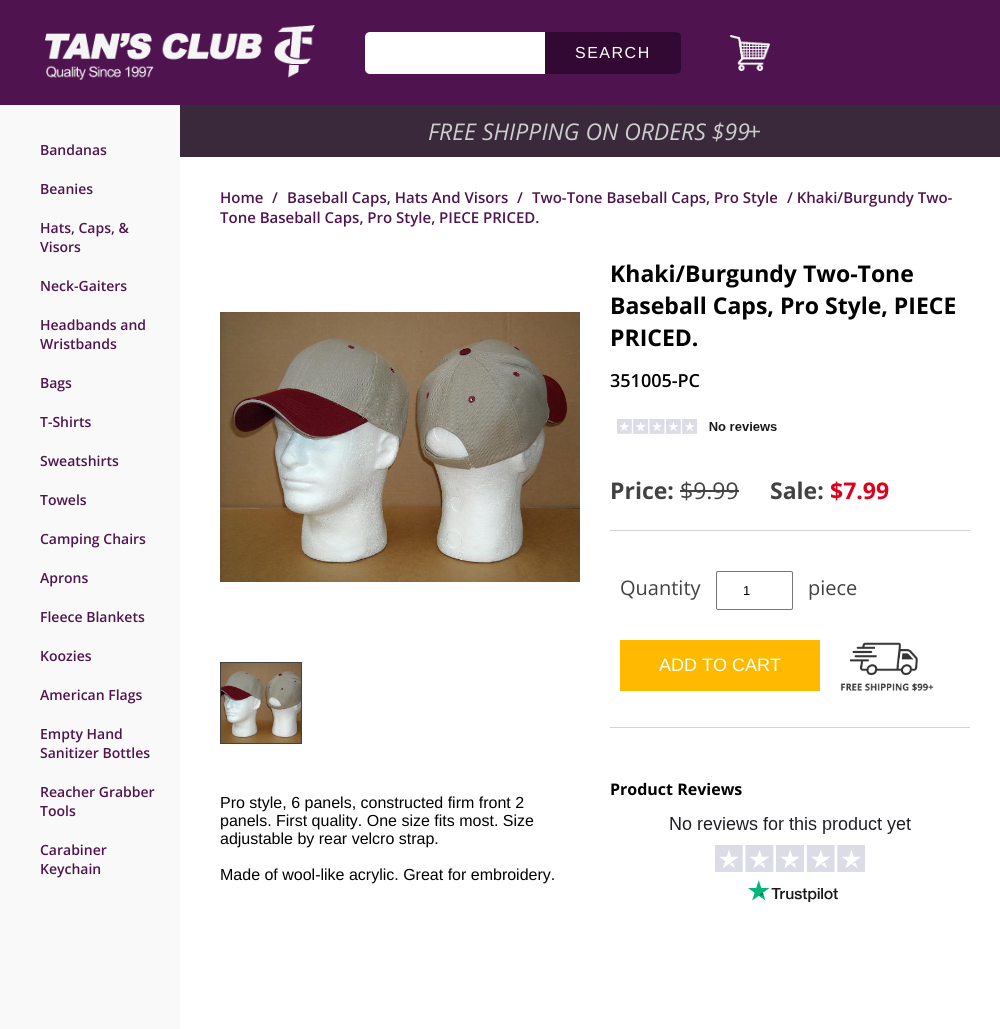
#include <cairo/cairo.h>
#include <math.h>
#include <stddef.h>

typedef struct { double x, y; const char *s; } line_t;
typedef struct { double x, y, w, h; unsigned color; } box_t;
static cairo_t *cr;

static void rgb(unsigned color)
{
	cairo_set_source_rgb(cr, (color >> 16) / 255.0, (color >> 8 & 255) / 255.0, (color & 255) / 255.0);
}

static void tracked(double x, double y, const char *s, double letter, double word)
{
	cairo_move_to(cr, x, y);
	while (*s) {
		char ch[5] = {0};
		int n = 0;
		do ch[n++] = *s++; while ((*s & 0xC0) == 0x80);
		cairo_show_text(cr, ch);
		cairo_rel_move_to(cr, letter + word * (*ch == ' '), 0);
	}
}

static void rrect(double x, double y, double w, double h, double r)
{
	cairo_new_sub_path(cr);
	cairo_arc(cr, x + w - r, y + h - r, r, 0, M_PI / 2);
	cairo_arc(cr, x + r, y + h - r, r, M_PI / 2, M_PI);
	cairo_arc(cr, x + r, y + r, r, M_PI, 1.5 * M_PI);
	cairo_arc(cr, x + w - r, y + r, r, 1.5 * M_PI, 2 * M_PI);
	cairo_close_path(cr);
}

static void image(const char *path, double x, double y, double w, double h)
{
	cairo_surface_t *image = cairo_image_surface_create_from_png(path);
	cairo_save(cr);
	cairo_set_source_surface(cr, image, x, y);
	cairo_rectangle(cr, x, y, w, h);
	cairo_fill(cr);
	cairo_restore(cr);
	cairo_surface_destroy(image);
}

int main(void) {
	cairo_surface_t *surface = cairo_image_surface_create(CAIRO_FORMAT_RGB24, 1000, 1029);
	cr = cairo_create(surface);
	cairo_font_options_t *options = cairo_font_options_create();
	cairo_font_options_set_hint_metrics(options, CAIRO_HINT_METRICS_OFF);
	cairo_font_options_set_hint_style(options, CAIRO_HINT_STYLE_NONE);
	cairo_set_font_options(cr, options);
	cairo_set_miter_limit(cr, 4);
	rgb(0xffffff);
	cairo_paint(cr);
	rgb(0x4f144f);
	cairo_rectangle(cr, 0, 0, 1000, 105);
	cairo_fill(cr);
	image("img/1.png", 45, 25, 270, 55);
	rgb(0xffffff);
	rrect(365, 32, 315, 42, 5);
	cairo_fill(cr);
	rgb(0x320932);
	cairo_new_path(cr);
	cairo_move_to(cr, 545, 32);
	cairo_line_to(cr, 676, 32);
	cairo_curve_to(cr, 679, 32, 681, 34, 681, 37);
	cairo_line_to(cr, 681, 69);
	cairo_curve_to(cr, 681, 72, 679, 74, 676, 74);
	cairo_line_to(cr, 545, 74);
	cairo_close_path(cr);
	cairo_fill(cr);
	image("img/2.png", 730, 35, 40, 36);
	rgb(0xf9f9f9);
	cairo_rectangle(cr, 0, 105, 180, 924);
	cairo_fill(cr);
	rgb(0x3a293a);
	cairo_rectangle(cr, 180, 105, 820, 52);
	cairo_fill(cr);
	image("img/3.png", 617, 419, 160, 15);
	{
		static const box_t items[] = {
			{610, 530, 360, 1, 0xd3d3d3},
			{680, 490, 59, 2, 0x424242},
			{610, 727, 360, 1, 0xd3d3d3},
		};
		for (size_t i = 0; i < sizeof items / sizeof *items; i++) {
			rgb(items[i].color);
			cairo_rectangle(cr, items[i].x, items[i].y, items[i].w, items[i].h);
			cairo_fill(cr);
		}
	}
	rrect(716.5, 571.5, 76, 38, 1.5);
	rgb(0x767676);
	cairo_set_line_width(cr, 1);
	cairo_stroke(cr);
	rgb(0xffba00);
	cairo_rectangle(cr, 620, 640, 200, 51);
	cairo_fill(cr);
	image("img/4.png", 840, 642, 94, 50);
	image("img/5.png", 670, 817, 241, 85);
	image("img/6.png", 220, 312, 360, 270);
	cairo_rectangle(cr, 220.5, 662.5, 81, 81);
	rgb(0x424242);
	cairo_stroke(cr);
	image("img/7.png", 221, 663, 80, 80);
	cairo_select_font_face(cr, "Liberation Sans", CAIRO_FONT_SLANT_NORMAL, CAIRO_FONT_WEIGHT_NORMAL);
	cairo_set_font_size(cr, 16);
	rgb(0xffffff);
	tracked(575, 58, "SEARCH", 1.5, 0);
	cairo_select_font_face(cr, "Open Sans SemiBold", CAIRO_FONT_SLANT_NORMAL, CAIRO_FONT_WEIGHT_NORMAL);
	cairo_set_font_size(cr, 14);
	rgb(0x50154f);
	{
		static const line_t items[] = {
			{40, 155, "Bandanas"},
			{40, 194, "Beanies"},
			{40, 233, "Hats, Caps, &"},
			{40, 252, "Visors"},
			{40, 291, "Neck-Gaiters"},
			{40, 330, "Headbands and"},
			{40, 349, "Wristbands"},
			{40, 388, "Bags"},
			{40, 427, "T-Shirts"},
			{40, 466, "Sweatshirts"},
			{40, 505, "Towels"},
			{40, 544, "Camping Chairs"},
			{40, 583, "Aprons"},
			{40, 622, "Fleece Blankets"},
			{40, 661, "Koozies"},
			{40, 700, "American Flags"},
			{40, 739, "Empty Hand"},
			{40, 758, "Sanitizer Bottles"},
			{40, 797, "Reacher Grabber"},
			{40, 816, "Tools"},
			{40, 855, "Carabiner"},
			{40, 874, "Keychain"},
		};
		for (size_t i = 0; i < sizeof items / sizeof *items; i++) {
			cairo_move_to(cr, items[i].x, items[i].y);
			cairo_show_text(cr, items[i].s);
		}
	}
	cairo_select_font_face(cr, "Open Sans", CAIRO_FONT_SLANT_ITALIC, CAIRO_FONT_WEIGHT_NORMAL);
	cairo_set_font_size(cr, 23);
	rgb(0xcccccc);
	cairo_move_to(cr, 428, 140);
	cairo_show_text(cr, "FREE SHIPPING ON ORDERS $99");
	cairo_set_font_size(cr, 24);
	cairo_move_to(cr, 747, 140);
	cairo_show_text(cr, "+");
	cairo_select_font_face(cr, "Open Sans SemiBold", CAIRO_FONT_SLANT_NORMAL, CAIRO_FONT_WEIGHT_NORMAL);
	cairo_set_font_size(cr, 15);
	rgb(0x50154f);
	{
		static const line_t items[] = {
			{220, 203, "Home"},
			{272, 203, "/"},
			{287, 203, "Baseball Caps, Hats And Visors"},
			{517, 203, "/"},
			{532, 203, "Two-Tone Baseball Caps, Pro Style"},
			{787, 203, "/ Khaki/Burgundy Two-"},
			{220, 223, "Tone Baseball Caps, Pro Style, PIECE PRICED."},
		};
		for (size_t i = 0; i < sizeof items / sizeof *items; i++) {
			cairo_move_to(cr, items[i].x, items[i].y);
			cairo_show_text(cr, items[i].s);
		}
	}
	cairo_select_font_face(cr, "Open Sans", CAIRO_FONT_SLANT_NORMAL, CAIRO_FONT_WEIGHT_BOLD);
	cairo_set_font_size(cr, 23);
	rgb(0x000000);
	{
		static const line_t items[] = {
			{610, 282, "Khaki/Burgundy Two-Tone"},
			{610, 314, "Baseball Caps, Pro Style, PIECE"},
			{610, 346, "PRICED."},
		};
		for (size_t i = 0; i < sizeof items / sizeof *items; i++) {
			cairo_move_to(cr, items[i].x, items[i].y);
			cairo_show_text(cr, items[i].s);
		}
	}
	cairo_select_font_face(cr, "Open Sans SemiBold", CAIRO_FONT_SLANT_NORMAL, CAIRO_FONT_WEIGHT_NORMAL);
	cairo_set_font_size(cr, 18);
	cairo_move_to(cr, 610, 387);
	cairo_show_text(cr, "351005-PC");
	cairo_select_font_face(cr, "Open Sans", CAIRO_FONT_SLANT_NORMAL, CAIRO_FONT_WEIGHT_BOLD);
	cairo_set_font_size(cr, 23);
	rgb(0x424242);
	cairo_move_to(cr, 610, 499);
	cairo_show_text(cr, "Price:");
	cairo_select_font_face(cr, "Open Sans", CAIRO_FONT_SLANT_NORMAL, CAIRO_FONT_WEIGHT_NORMAL);
	cairo_move_to(cr, 680, 499);
	cairo_show_text(cr, "$9.99");
	cairo_select_font_face(cr, "Open Sans", CAIRO_FONT_SLANT_NORMAL, CAIRO_FONT_WEIGHT_BOLD);
	cairo_move_to(cr, 770, 499);
	cairo_show_text(cr, "Sale:");
	rgb(0xde001c);
	cairo_move_to(cr, 830, 499);
	cairo_show_text(cr, "$7.99");
	cairo_select_font_face(cr, "Open Sans", CAIRO_FONT_SLANT_NORMAL, CAIRO_FONT_WEIGHT_NORMAL);
	cairo_set_font_size(cr, 20);
	rgb(0x424242);
	cairo_move_to(cr, 620, 595);
	cairo_show_text(cr, "Quantity");
	cairo_select_font_face(cr, "Liberation Sans", CAIRO_FONT_SLANT_NORMAL, CAIRO_FONT_WEIGHT_NORMAL);
	cairo_set_font_size(cr, 13);
	rgb(0x000000);
	cairo_move_to(cr, 743, 595);
	cairo_show_text(cr, "1");
	cairo_select_font_face(cr, "Open Sans", CAIRO_FONT_SLANT_NORMAL, CAIRO_FONT_WEIGHT_NORMAL);
	cairo_set_font_size(cr, 20);
	rgb(0x424242);
	cairo_move_to(cr, 808, 595);
	cairo_show_text(cr, "piece");
	cairo_select_font_face(cr, "Liberation Sans", CAIRO_FONT_SLANT_NORMAL, CAIRO_FONT_WEIGHT_NORMAL);
	cairo_set_font_size(cr, 18);
	rgb(0xffffff);
	cairo_move_to(cr, 659, 671);
	cairo_show_text(cr, "ADD TO CART");
	cairo_select_font_face(cr, "Open Sans", CAIRO_FONT_SLANT_NORMAL, CAIRO_FONT_WEIGHT_BOLD);
	cairo_set_font_size(cr, 16);
	rgb(0x000000);
	cairo_move_to(cr, 610, 795);
	cairo_show_text(cr, "Product Reviews");
	cairo_select_font_face(cr, "Liberation Sans", CAIRO_FONT_SLANT_NORMAL, CAIRO_FONT_WEIGHT_NORMAL);
	{
		static const line_t items[] = {
			{220, 808, "Pro style, 6 panels, constructed firm front 2"},
			{220, 826, "panels. First quality. One size fits most. Size"},
			{220, 844, "adjustable by rear velcro strap."},
			{220, 880, "Made of wool-like acrylic. Great for embroidery."},
		};
		for (size_t i = 0; i < sizeof items / sizeof *items; i++) {
			cairo_move_to(cr, items[i].x, items[i].y);
			cairo_show_text(cr, items[i].s);
		}
	}
	cairo_surface_write_to_png(surface, "page.png");
	cairo_font_options_destroy(options);
	cairo_destroy(cr);
	cairo_surface_destroy(surface);
	return 0;
}
